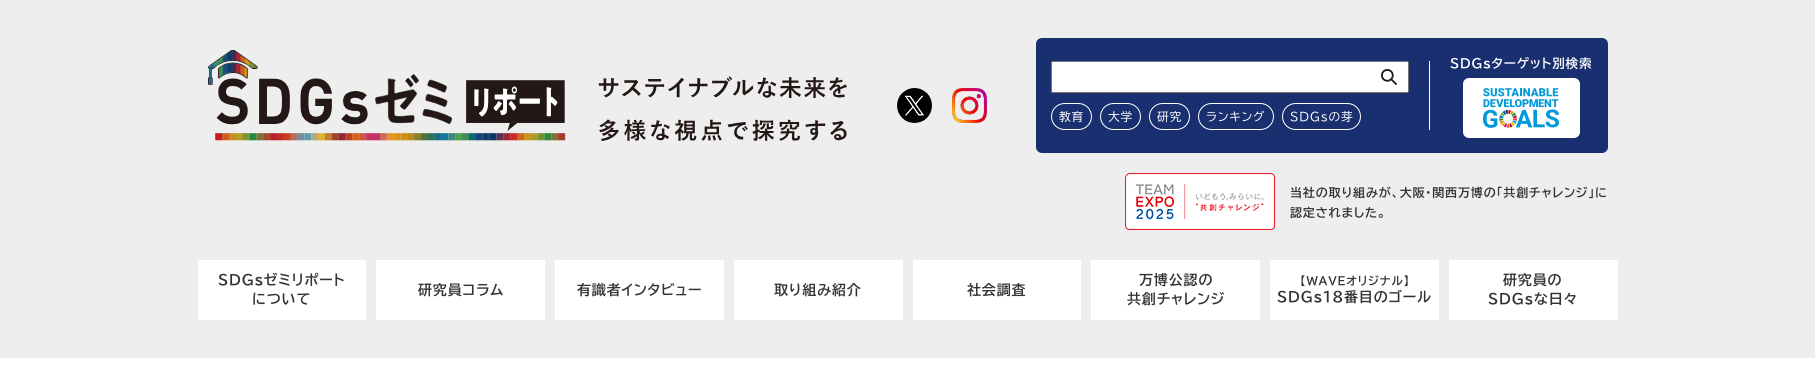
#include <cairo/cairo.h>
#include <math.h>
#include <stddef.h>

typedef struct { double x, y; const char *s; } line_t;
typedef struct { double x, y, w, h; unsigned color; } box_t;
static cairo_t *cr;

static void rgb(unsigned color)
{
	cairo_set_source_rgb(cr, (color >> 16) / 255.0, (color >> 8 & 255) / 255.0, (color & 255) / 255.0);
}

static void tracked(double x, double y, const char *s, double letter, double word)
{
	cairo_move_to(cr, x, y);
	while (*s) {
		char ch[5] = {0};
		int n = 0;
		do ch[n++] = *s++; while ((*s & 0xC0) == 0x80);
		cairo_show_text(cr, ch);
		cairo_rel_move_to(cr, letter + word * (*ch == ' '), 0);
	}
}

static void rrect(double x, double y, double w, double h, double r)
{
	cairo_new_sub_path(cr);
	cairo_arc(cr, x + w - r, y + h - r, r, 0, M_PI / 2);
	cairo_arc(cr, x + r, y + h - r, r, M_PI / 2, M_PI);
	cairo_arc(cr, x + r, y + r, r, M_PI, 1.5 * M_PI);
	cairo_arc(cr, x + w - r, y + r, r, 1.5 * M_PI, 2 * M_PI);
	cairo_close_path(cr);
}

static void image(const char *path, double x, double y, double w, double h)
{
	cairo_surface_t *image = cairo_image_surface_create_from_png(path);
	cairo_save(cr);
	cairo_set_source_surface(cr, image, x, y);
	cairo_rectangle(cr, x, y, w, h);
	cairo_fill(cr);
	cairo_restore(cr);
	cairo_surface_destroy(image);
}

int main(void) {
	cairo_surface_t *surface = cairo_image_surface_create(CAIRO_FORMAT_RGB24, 1815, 377);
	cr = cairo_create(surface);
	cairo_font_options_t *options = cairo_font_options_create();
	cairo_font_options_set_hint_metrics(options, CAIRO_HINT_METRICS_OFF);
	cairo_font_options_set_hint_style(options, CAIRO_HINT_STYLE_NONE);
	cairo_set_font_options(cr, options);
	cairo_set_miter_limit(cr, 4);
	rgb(0xffffff);
	cairo_paint(cr);
	rgb(0xeeeeee);
	cairo_rectangle(cr, 0, 0, 1815, 358);
	cairo_fill(cr);
	image("img/1.png", 208, 50, 639, 91);
	image("img/2.png", 897, 88, 35, 35);
	image("img/3.png", 952, 88, 35, 35);
	rgb(0x192f70);
	rrect(1036, 38, 572, 115, 6);
	cairo_fill(cr);
	rgb(0xffffff);
	rrect(1463, 78, 117, 60, 6);
	cairo_fill(cr);
	image("img/4.png", 1483, 88, 76, 40);
	cairo_rectangle(cr, 1429, 61, 1, 69);
	cairo_fill(cr);
	rrect(1051.5, 61.5, 357, 31, 1.5);
	cairo_fill_preserve(cr);
	rgb(0x767676);
	cairo_set_line_width(cr, 1);
	cairo_stroke(cr);
	image("img/5.png", 1381, 69, 16, 16);
	rrect(1051.5, 103.5, 40, 26, 13);
	rgb(0xffffff);
	cairo_stroke(cr);
	rrect(1100.5, 103.5, 40, 26, 13);
	cairo_stroke(cr);
	rrect(1149.5, 103.5, 40, 26, 13);
	cairo_stroke(cr);
	rrect(1198.5, 103.5, 75, 26, 13);
	cairo_stroke(cr);
	rrect(1282.5, 103.5, 78, 26, 13);
	cairo_stroke(cr);
	image("img/6.png", 1125, 173, 150, 57);
	{
		static const box_t items[] = {
			{198, 260, 168, 60, 0xffffff},
			{376, 260, 169, 60, 0xffffff},
			{555, 260, 169, 60, 0xffffff},
			{734, 260, 169, 60, 0xffffff},
			{913, 260, 168, 60, 0xffffff},
			{1091, 260, 169, 60, 0xffffff},
			{1270, 260, 169, 60, 0xffffff},
			{1449, 260, 169, 60, 0xffffff},
		};
		for (size_t i = 0; i < sizeof items / sizeof *items; i++) {
			rgb(items[i].color);
			cairo_rectangle(cr, items[i].x, items[i].y, items[i].w, items[i].h);
			cairo_fill(cr);
		}
	}
	cairo_select_font_face(cr, "BIZ UDPGothic", CAIRO_FONT_SLANT_NORMAL, CAIRO_FONT_WEIGHT_BOLD);
	cairo_set_font_size(cr, 12.6);
	tracked(1450, 68, "SDGsターゲット別検索", 0.85, 0);
	cairo_select_font_face(cr, "BIZ UDPGothic", CAIRO_FONT_SLANT_NORMAL, CAIRO_FONT_WEIGHT_NORMAL);
	cairo_set_font_size(cr, 11.75);
	{
		static const line_t items[] = {
			{1059, 121, "教育"},
			{1108, 121, "大学"},
			{1157, 121, "研究"},
			{1206, 121, "ランキング"},
			{1290, 121, "SDGsの芽"},
		};
		for (size_t i = 0; i < sizeof items / sizeof *items; i++) {
			tracked(items[i].x, items[i].y, items[i].s, 0.85, 0);
		}
	}
	cairo_select_font_face(cr, "BIZ UDPGothic", CAIRO_FONT_SLANT_NORMAL, CAIRO_FONT_WEIGHT_BOLD);
	cairo_set_font_size(cr, 12);
	rgb(0x333333);
	tracked(1290, 197, "当社の取り組みが、大阪・関西万博の「共創チャレンジ」に", 0.85, 0);
	tracked(1290, 217, "認定されました。", 0.85, 0);
	cairo_set_font_size(cr, 14);
	{
		static const line_t items[] = {
			{218, 285, "SDGsゼミリポート"},
			{252, 304, "について"},
			{418, 295, "研究員コラム"},
			{577, 295, "有識者インタビュー"},
			{774, 295, "取り組み紹介"},
			{967, 295, "社会調査"},
			{1139, 285, "万博公認の"},
			{1127, 304, "共創チャレンジ"},
		};
		for (size_t i = 0; i < sizeof items / sizeof *items; i++) {
			tracked(items[i].x, items[i].y, items[i].s, 0.85, 0);
		}
	}
	cairo_set_font_size(cr, 11.25);
	tracked(1300, 285, "【WAVEオリジナル】", 0.85, 0);
	cairo_set_font_size(cr, 14);
	{
		static const line_t items[] = {
			{1277, 302, "SDGs18番目のゴール"},
			{1503, 285, "研究員の"},
			{1488, 304, "SDGsな日々"},
		};
		for (size_t i = 0; i < sizeof items / sizeof *items; i++) {
			tracked(items[i].x, items[i].y, items[i].s, 0.85, 0);
		}
	}
	cairo_surface_write_to_png(surface, "page.png");
	cairo_font_options_destroy(options);
	cairo_destroy(cr);
	cairo_surface_destroy(surface);
	return 0;
}
